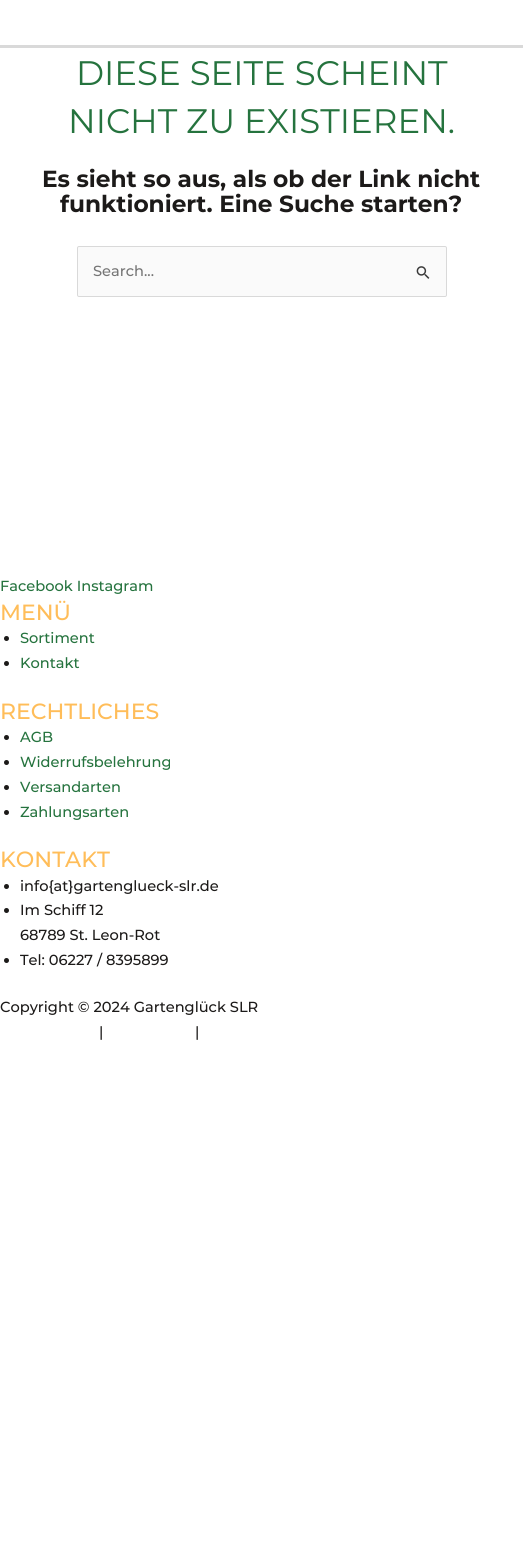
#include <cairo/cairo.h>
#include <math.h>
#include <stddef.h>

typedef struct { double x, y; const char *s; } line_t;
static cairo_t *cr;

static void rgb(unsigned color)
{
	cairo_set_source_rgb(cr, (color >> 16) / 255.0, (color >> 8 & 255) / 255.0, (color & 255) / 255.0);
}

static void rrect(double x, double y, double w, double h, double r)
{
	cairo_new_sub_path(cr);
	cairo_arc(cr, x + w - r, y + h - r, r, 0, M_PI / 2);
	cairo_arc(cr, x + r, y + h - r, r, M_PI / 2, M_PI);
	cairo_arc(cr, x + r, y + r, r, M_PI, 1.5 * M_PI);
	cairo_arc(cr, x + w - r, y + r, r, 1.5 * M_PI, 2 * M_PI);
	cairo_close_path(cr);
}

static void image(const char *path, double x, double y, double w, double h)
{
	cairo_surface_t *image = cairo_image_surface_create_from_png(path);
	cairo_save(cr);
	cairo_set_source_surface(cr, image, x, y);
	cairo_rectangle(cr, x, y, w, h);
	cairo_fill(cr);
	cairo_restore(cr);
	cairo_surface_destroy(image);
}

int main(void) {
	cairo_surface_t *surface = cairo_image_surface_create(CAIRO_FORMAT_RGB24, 523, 1557);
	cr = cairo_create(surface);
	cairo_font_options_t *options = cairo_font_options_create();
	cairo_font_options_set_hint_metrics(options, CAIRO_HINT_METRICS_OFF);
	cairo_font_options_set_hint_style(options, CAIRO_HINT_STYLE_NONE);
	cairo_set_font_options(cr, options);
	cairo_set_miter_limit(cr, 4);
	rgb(0xffffff);
	cairo_paint(cr);
	rgb(0xd9d9d9);
	cairo_rectangle(cr, 0, 45, 523, 3);
	cairo_fill(cr);
	rgb(0xfafafa);
	rrect(77.5, 246.5, 369, 50, 1.5);
	cairo_fill_preserve(cr);
	rgb(0xd9d9d9);
	cairo_set_line_width(cr, 1);
	cairo_stroke(cr);
	image("img/1.png", 416, 266, 14, 13);
	rgb(0x1c1a19);
	cairo_arc(cr, 6.5, 638.5, 2.5, 0, 2 * M_PI);
	cairo_fill(cr);
	cairo_arc(cr, 6.5, 663.5, 2.5, 0, 2 * M_PI);
	cairo_fill(cr);
	cairo_arc(cr, 6.5, 737.5, 2.5, 0, 2 * M_PI);
	cairo_fill(cr);
	cairo_arc(cr, 6.5, 762.5, 2.5, 0, 2 * M_PI);
	cairo_fill(cr);
	cairo_arc(cr, 6.5, 787.5, 2.5, 0, 2 * M_PI);
	cairo_fill(cr);
	cairo_arc(cr, 6.5, 812.5, 2.5, 0, 2 * M_PI);
	cairo_fill(cr);
	cairo_arc(cr, 6.5, 886.5, 2.5, 0, 2 * M_PI);
	cairo_fill(cr);
	cairo_arc(cr, 6.5, 910.5, 2.5, 0, 2 * M_PI);
	cairo_fill(cr);
	cairo_arc(cr, 6.5, 960.5, 2.5, 0, 2 * M_PI);
	cairo_fill(cr);
	cairo_select_font_face(cr, "Montserrat", CAIRO_FONT_SLANT_NORMAL, CAIRO_FONT_WEIGHT_NORMAL);
	cairo_set_font_size(cr, 34);
	rgb(0x25733e);
	cairo_move_to(cr, 76, 85);
	cairo_show_text(cr, "DIESE SEITE SCHEINT");
	cairo_move_to(cr, 68, 133);
	cairo_show_text(cr, "NICHT ZU EXISTIEREN.");
	cairo_select_font_face(cr, "Montserrat", CAIRO_FONT_SLANT_NORMAL, CAIRO_FONT_WEIGHT_BOLD);
	cairo_set_font_size(cr, 23.25);
	rgb(0x1c1a19);
	cairo_move_to(cr, 42, 187);
	cairo_show_text(cr, "Es sieht so aus, als ob der Link nicht");
	cairo_move_to(cr, 60, 212);
	cairo_show_text(cr, "funktioniert. Eine Suche starten?");
	cairo_select_font_face(cr, "Montserrat Medium", CAIRO_FONT_SLANT_NORMAL, CAIRO_FONT_WEIGHT_NORMAL);
	cairo_set_font_size(cr, 14.6);
	rgb(0x757575);
	cairo_move_to(cr, 93, 276);
	cairo_show_text(cr, "Search...");
	rgb(0x25733e);
	cairo_move_to(cr, 0, 591);
	cairo_show_text(cr, "Facebook Instagram");
	cairo_set_font_size(cr, 22);
	rgb(0xffbd59);
	cairo_move_to(cr, 0, 620);
	cairo_show_text(cr, "MENÜ");
	cairo_set_font_size(cr, 14.6);
	rgb(0x25733e);
	cairo_move_to(cr, 20, 643);
	cairo_show_text(cr, "Sortiment");
	cairo_move_to(cr, 20, 668);
	cairo_show_text(cr, "Kontakt");
	cairo_set_font_size(cr, 22);
	rgb(0xffbd59);
	cairo_move_to(cr, 0, 719);
	cairo_show_text(cr, "RECHTLICHES");
	cairo_set_font_size(cr, 14.6);
	rgb(0x25733e);
	{
		static const line_t items[] = {
			{20, 742, "AGB"},
			{20, 767, "Widerrufsbelehrung"},
			{20, 792, "Versandarten"},
			{20, 817, "Zahlungsarten"},
		};
		for (size_t i = 0; i < sizeof items / sizeof *items; i++) {
			cairo_move_to(cr, items[i].x, items[i].y);
			cairo_show_text(cr, items[i].s);
		}
	}
	cairo_set_font_size(cr, 22);
	rgb(0xffbd59);
	cairo_move_to(cr, 0, 867);
	cairo_show_text(cr, "KONTAKT");
	cairo_set_font_size(cr, 14.6);
	rgb(0x1c1a19);
	{
		static const line_t items[] = {
			{20, 891, "info{at}gartenglueck-slr.de"},
			{20, 915, "Im Schiff 12"},
			{20, 940, "68789 St. Leon-Rot"},
			{20, 965, "Tel: 06227 / 8395899"},
			{0, 1012, "Copyright © 2024 Gartenglück SLR"},
			{99, 1037, "|"},
			{195, 1037, "|"},
		};
		for (size_t i = 0; i < sizeof items / sizeof *items; i++) {
			cairo_move_to(cr, items[i].x, items[i].y);
			cairo_show_text(cr, items[i].s);
		}
	}
	cairo_surface_write_to_png(surface, "page.png");
	cairo_font_options_destroy(options);
	cairo_destroy(cr);
	cairo_surface_destroy(surface);
	return 0;
}
